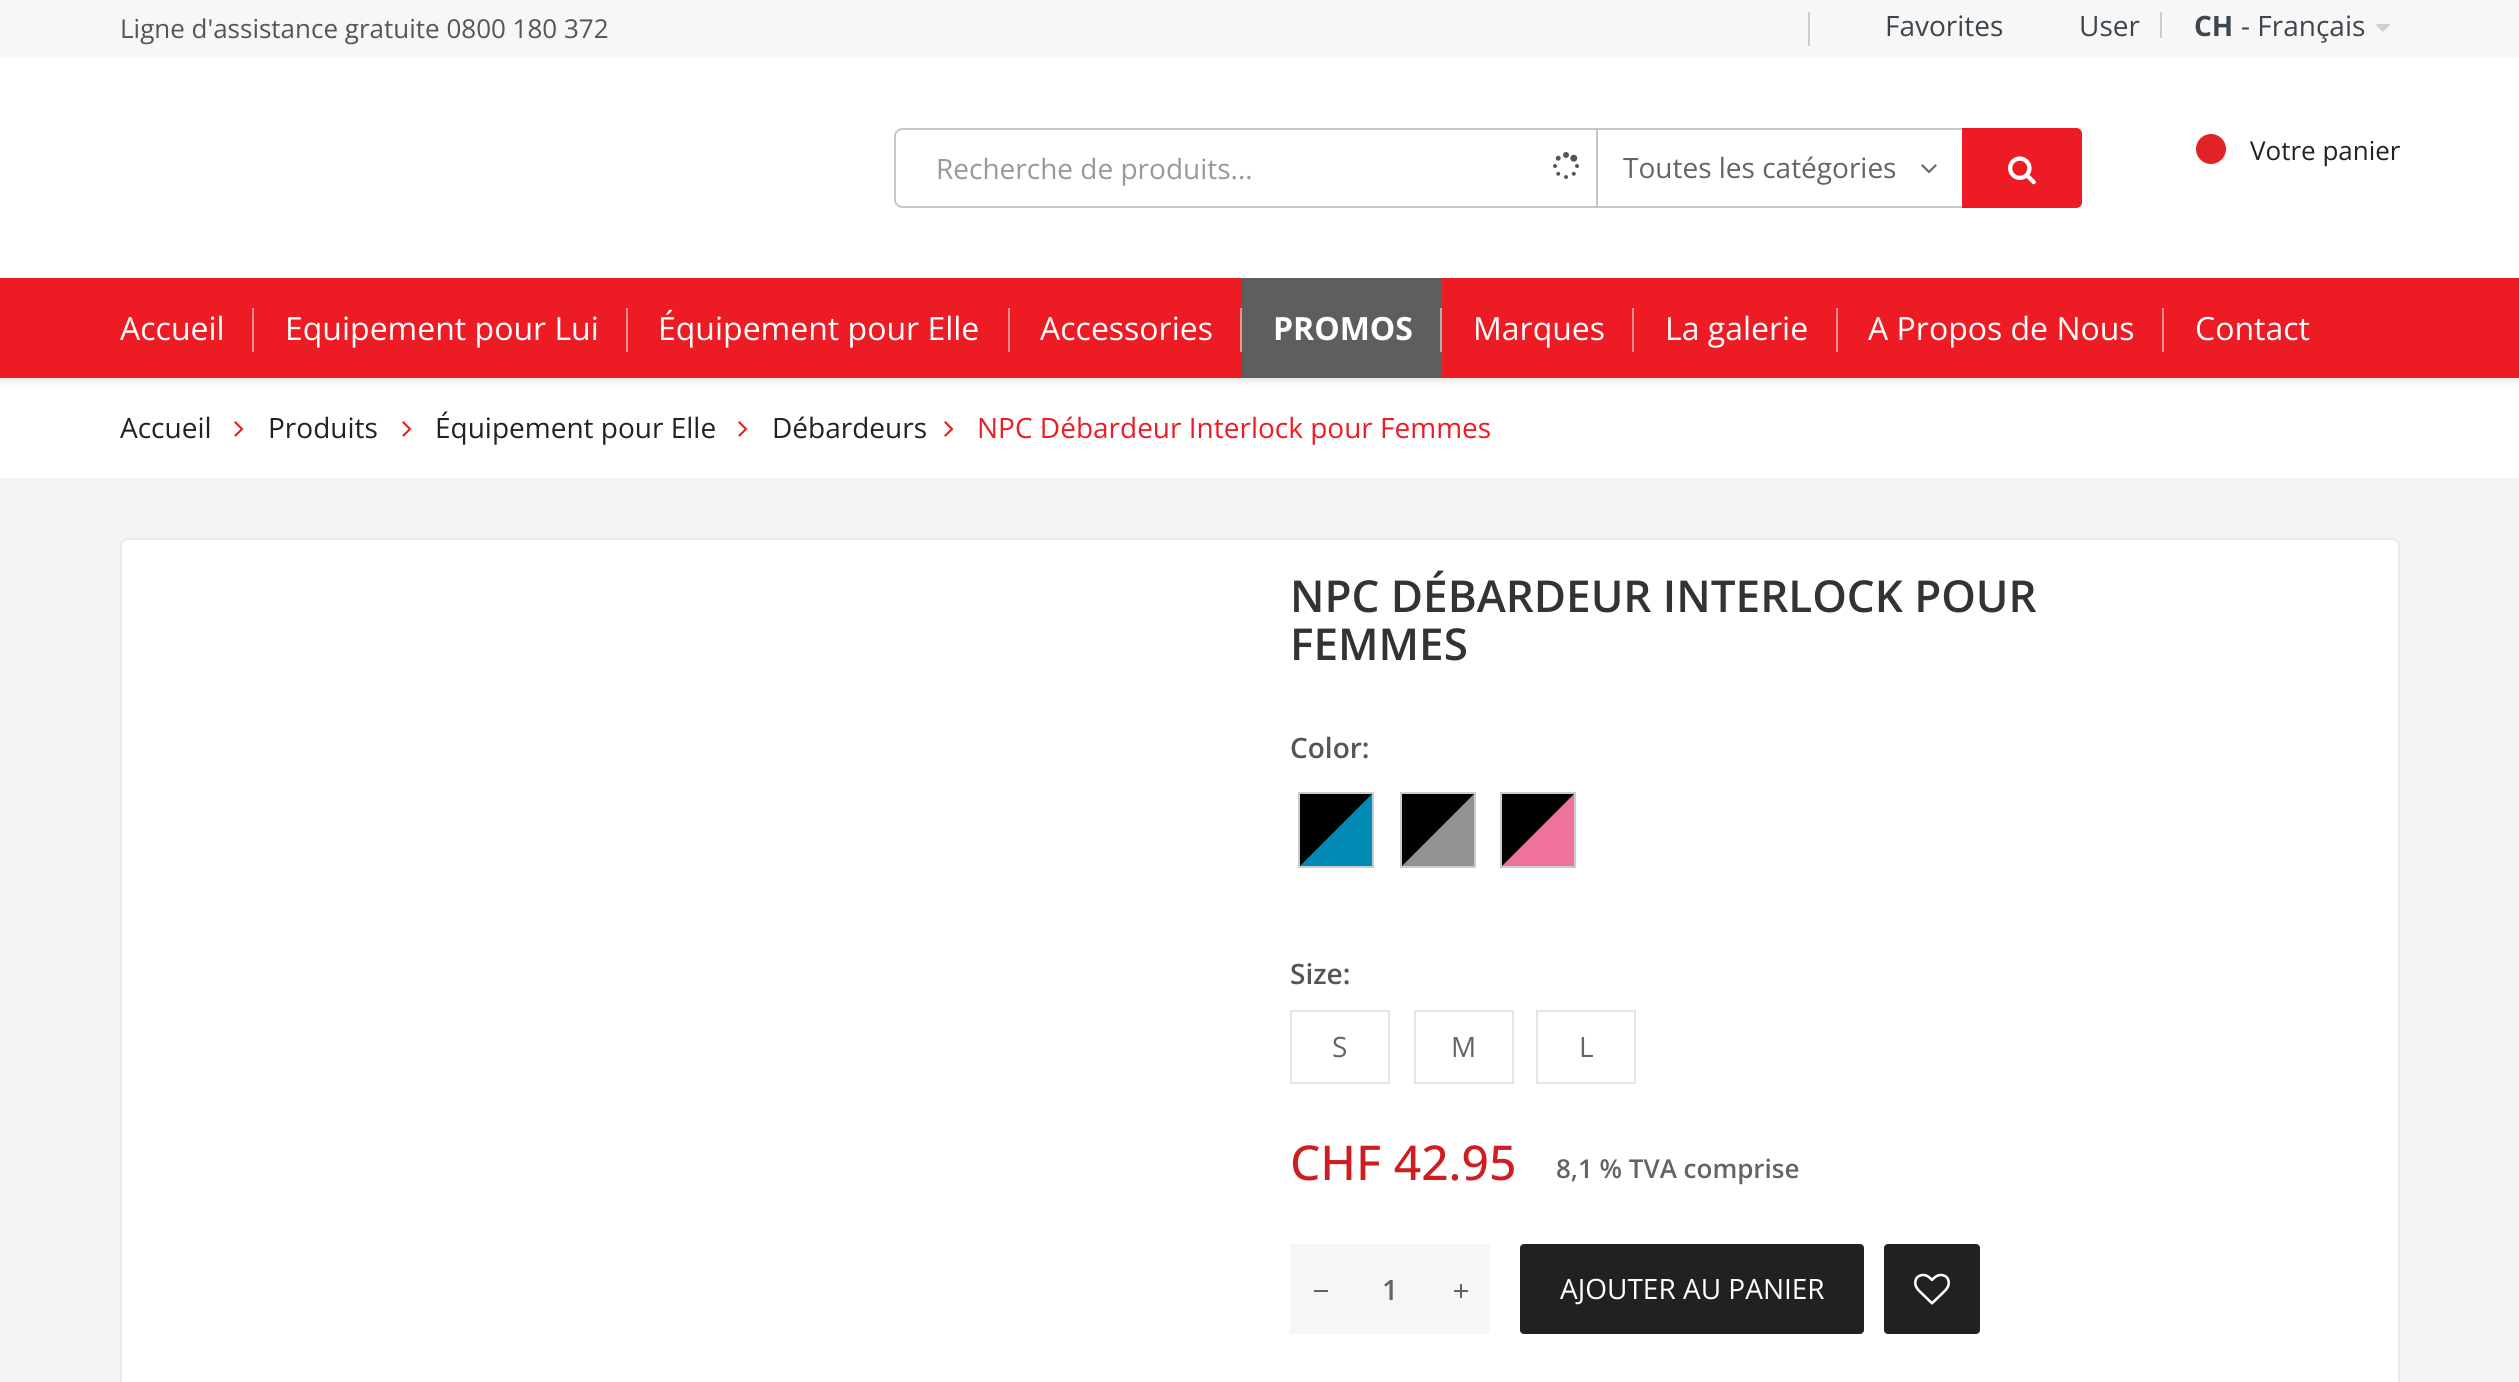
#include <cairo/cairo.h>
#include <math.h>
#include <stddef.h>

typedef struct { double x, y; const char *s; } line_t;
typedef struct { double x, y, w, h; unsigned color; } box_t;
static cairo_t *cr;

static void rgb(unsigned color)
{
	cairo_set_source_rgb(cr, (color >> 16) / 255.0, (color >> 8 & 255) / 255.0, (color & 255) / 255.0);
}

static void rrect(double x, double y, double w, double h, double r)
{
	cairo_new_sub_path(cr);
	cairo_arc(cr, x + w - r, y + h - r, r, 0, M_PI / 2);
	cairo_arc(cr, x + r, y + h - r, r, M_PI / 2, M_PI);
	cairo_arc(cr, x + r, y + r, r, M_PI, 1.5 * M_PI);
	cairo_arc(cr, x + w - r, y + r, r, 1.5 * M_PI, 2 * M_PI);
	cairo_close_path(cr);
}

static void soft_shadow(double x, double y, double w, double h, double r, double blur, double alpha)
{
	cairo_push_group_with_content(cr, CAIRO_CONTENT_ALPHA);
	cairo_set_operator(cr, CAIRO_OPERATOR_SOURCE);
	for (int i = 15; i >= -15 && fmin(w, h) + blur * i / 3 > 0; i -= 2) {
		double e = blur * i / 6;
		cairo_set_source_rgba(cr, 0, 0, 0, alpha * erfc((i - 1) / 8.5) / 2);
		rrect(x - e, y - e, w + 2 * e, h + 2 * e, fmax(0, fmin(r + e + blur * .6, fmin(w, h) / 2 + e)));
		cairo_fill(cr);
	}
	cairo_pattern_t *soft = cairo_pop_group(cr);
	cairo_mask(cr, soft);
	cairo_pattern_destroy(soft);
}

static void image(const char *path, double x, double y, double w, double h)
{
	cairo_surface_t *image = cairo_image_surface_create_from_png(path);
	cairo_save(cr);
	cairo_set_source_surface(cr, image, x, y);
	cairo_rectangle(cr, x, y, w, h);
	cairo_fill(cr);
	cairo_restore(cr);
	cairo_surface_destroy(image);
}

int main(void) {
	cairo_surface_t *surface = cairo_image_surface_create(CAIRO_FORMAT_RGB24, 2519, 1382);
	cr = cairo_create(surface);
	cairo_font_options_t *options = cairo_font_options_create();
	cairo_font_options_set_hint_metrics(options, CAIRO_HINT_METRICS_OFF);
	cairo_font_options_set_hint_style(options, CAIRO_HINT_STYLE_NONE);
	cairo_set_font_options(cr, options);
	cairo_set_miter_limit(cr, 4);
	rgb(0xf4f4f4);
	cairo_paint(cr);
	rgb(0xffffff);
	cairo_rectangle(cr, 0, 378, 2519, 100);
	cairo_fill(cr);
	rgb(0x000000);
	soft_shadow(0, 0, 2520, 378, 0, 5, 0.2);
	{
		static const box_t items[] = {
			{0, 58, 2519, 220, 0xffffff},
			{0, 0, 2519, 58, 0xf7f7f7},
			{1808, 12, 2, 34, 0xcccccc},
			{2160, 12, 2, 26, 0xcccccc},
		};
		for (size_t i = 0; i < sizeof items / sizeof *items; i++) {
			rgb(items[i].color);
			cairo_rectangle(cr, items[i].x, items[i].y, items[i].w, items[i].h);
			cairo_fill(cr);
		}
	}
	image("img/1.png", 2376, 24, 14, 8);
	rgb(0xbec8ce);
	cairo_set_fill_rule(cr, CAIRO_FILL_RULE_EVEN_ODD);
	cairo_new_path(cr);
	cairo_move_to(cr, 902, 128);
	cairo_line_to(cr, 1596, 128);
	cairo_line_to(cr, 1596, 208);
	cairo_line_to(cr, 902, 208);
	cairo_curve_to(cr, 898, 208, 894, 204, 894, 200);
	cairo_line_to(cr, 894, 136);
	cairo_curve_to(cr, 894, 132, 898, 128, 902, 128);
	cairo_close_path(cr);
	cairo_move_to(cr, 902, 130);
	cairo_line_to(cr, 1596, 130);
	cairo_line_to(cr, 1596, 206);
	cairo_line_to(cr, 902, 206);
	cairo_curve_to(cr, 899, 206, 896, 203, 896, 200);
	cairo_line_to(cr, 896, 136);
	cairo_curve_to(cr, 896, 133, 899, 130, 902, 130);
	cairo_close_path(cr);
	cairo_fill(cr);
	image("img/2.png", 1553, 152, 26, 27);
	{
		static const box_t items[] = {
			{1596, 128, 366, 2, 0xbec8ce},
			{1596, 206, 366, 2, 0xbec8ce},
			{1596, 128, 2, 80, 0xbec8ce},
		};
		for (size_t i = 0; i < sizeof items / sizeof *items; i++) {
			rgb(items[i].color);
			cairo_rectangle(cr, items[i].x, items[i].y, items[i].w, items[i].h);
			cairo_fill(cr);
		}
	}
	image("img/3.png", 1921, 164, 16, 10);
	rgb(0xed1c24);
	cairo_new_path(cr);
	cairo_move_to(cr, 1963, 129);
	cairo_line_to(cr, 2076, 129);
	cairo_curve_to(cr, 2079, 129, 2081, 131, 2081, 134);
	cairo_line_to(cr, 2081, 202);
	cairo_curve_to(cr, 2081, 205, 2079, 207, 2076, 207);
	cairo_line_to(cr, 1963, 207);
	cairo_close_path(cr);
	cairo_fill_preserve(cr);
	cairo_stroke(cr);
	image("img/4.png", 2008, 156, 28, 29);
	rgb(0xe12325);
	cairo_arc(cr, 2211, 149, 15, 0, 2 * M_PI);
	cairo_fill(cr);
	{
		static const box_t items[] = {
			{0, 278, 2519, 100, 0xed1c24},
			{252, 308, 2, 44, 0xf68e92},
			{626, 308, 2, 44, 0xf68e92},
			{1008, 308, 2, 44, 0xf68e92},
			{1240, 308, 2, 44, 0xf68e92},
			{1242, 278, 200, 100, 0x5e5e5e},
			{1440, 308, 2, 44, 0xafafaf},
			{1632, 308, 2, 44, 0xf68e92},
			{1836, 308, 2, 44, 0xf68e92},
			{2162, 308, 2, 44, 0xf68e92},
		};
		for (size_t i = 0; i < sizeof items / sizeof *items; i++) {
			rgb(items[i].color);
			cairo_rectangle(cr, items[i].x, items[i].y, items[i].w, items[i].h);
			cairo_fill(cr);
		}
	}
	image("img/5.png", 234, 421, 10, 16);
	image("img/5.png", 402, 421, 10, 16);
	image("img/5.png", 738, 421, 10, 16);
	image("img/5.png", 944, 421, 10, 16);
	rgb(0xffffff);
	rrect(121, 539, 2278, 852, 7);
	cairo_fill_preserve(cr);
	rgb(0xebebeb);
	cairo_stroke(cr);
	rgb(0x000000);
	cairo_rectangle(cr, 1299, 793, 74, 74);
	cairo_fill_preserve(cr);
	rgb(0xcccccc);
	cairo_stroke(cr);
	rgb(0x008cb4);
	cairo_set_fill_rule(cr, CAIRO_FILL_RULE_WINDING);
	cairo_new_path(cr);
	cairo_move_to(cr, 1372, 866);
	cairo_line_to(cr, 1300, 866);
	cairo_line_to(cr, 1372, 794);
	cairo_close_path(cr);
	cairo_fill(cr);
	rgb(0x000000);
	cairo_rectangle(cr, 1401, 793, 74, 74);
	cairo_fill_preserve(cr);
	rgb(0xcccccc);
	cairo_stroke(cr);
	rgb(0x929292);
	cairo_new_path(cr);
	cairo_move_to(cr, 1474, 866);
	cairo_line_to(cr, 1402, 866);
	cairo_line_to(cr, 1474, 794);
	cairo_close_path(cr);
	cairo_fill(cr);
	rgb(0x000000);
	cairo_rectangle(cr, 1501, 793, 74, 74);
	cairo_fill_preserve(cr);
	rgb(0xcccccc);
	cairo_stroke(cr);
	rgb(0xee719e);
	cairo_new_path(cr);
	cairo_move_to(cr, 1574, 866);
	cairo_line_to(cr, 1502, 866);
	cairo_line_to(cr, 1574, 794);
	cairo_close_path(cr);
	cairo_fill(cr);
	cairo_rectangle(cr, 1291, 1011, 98, 72);
	rgb(0xe5e5e5);
	cairo_stroke(cr);
	cairo_rectangle(cr, 1415, 1011, 98, 72);
	cairo_stroke(cr);
	cairo_rectangle(cr, 1537, 1011, 98, 72);
	cairo_stroke(cr);
	{
		static const box_t items[] = {
			{1290, 1244, 200, 90, 0xf6f6f6},
			{1314, 1290, 14, 2, 0x626262},
			{1454, 1290, 14, 2, 0x626262},
			{1460, 1284, 2, 14, 0x626262},
		};
		for (size_t i = 0; i < sizeof items / sizeof *items; i++) {
			rgb(items[i].color);
			cairo_rectangle(cr, items[i].x, items[i].y, items[i].w, items[i].h);
			cairo_fill(cr);
		}
	}
	rgb(0x212121);
	rrect(1520, 1244, 344, 90, 4);
	cairo_fill(cr);
	rrect(1884, 1244, 96, 90, 4);
	cairo_fill(cr);
	image("img/6.png", 1914, 1273, 36, 32);
	cairo_select_font_face(cr, "Open Sans", CAIRO_FONT_SLANT_NORMAL, CAIRO_FONT_WEIGHT_NORMAL);
	cairo_set_font_size(cr, 26);
	rgb(0x555555);
	cairo_move_to(cr, 120, 38);
	cairo_show_text(cr, "Ligne d'assistance gratuite 0800 180 372");
	cairo_set_font_size(cr, 28);
	rgb(0x3d464d);
	cairo_move_to(cr, 1885, 36);
	cairo_show_text(cr, "Favorites");
	cairo_move_to(cr, 2079, 36);
	cairo_show_text(cr, "User");
	cairo_select_font_face(cr, "Open Sans", CAIRO_FONT_SLANT_NORMAL, CAIRO_FONT_WEIGHT_BOLD);
	cairo_move_to(cr, 2194, 36);
	cairo_show_text(cr, "CH");
	cairo_select_font_face(cr, "Open Sans", CAIRO_FONT_SLANT_NORMAL, CAIRO_FONT_WEIGHT_NORMAL);
	cairo_move_to(cr, 2241, 36);
	cairo_show_text(cr, "- Français");
	rgb(0x999999);
	cairo_move_to(cr, 936, 179);
	cairo_show_text(cr, "Recherche de produits...");
	rgb(0x646466);
	cairo_move_to(cr, 1623, 178);
	cairo_show_text(cr, "Toutes les catégories");
	cairo_set_font_size(cr, 26);
	rgb(0x222222);
	cairo_move_to(cr, 2250, 160);
	cairo_show_text(cr, "Votre panier");
	cairo_set_font_size(cr, 32);
	rgb(0xffffff);
	{
		static const line_t items[] = {
			{120, 340, "Accueil"},
			{285, 340, "Equipement pour Lui"},
			{658, 340, "Équipement pour Elle"},
			{1040, 340, "Accessories"},
		};
		for (size_t i = 0; i < sizeof items / sizeof *items; i++) {
			cairo_move_to(cr, items[i].x, items[i].y);
			cairo_show_text(cr, items[i].s);
		}
	}
	cairo_select_font_face(cr, "Open Sans", CAIRO_FONT_SLANT_NORMAL, CAIRO_FONT_WEIGHT_BOLD);
	cairo_move_to(cr, 1273, 340);
	cairo_show_text(cr, "PROMOS");
	cairo_select_font_face(cr, "Open Sans", CAIRO_FONT_SLANT_NORMAL, CAIRO_FONT_WEIGHT_NORMAL);
	{
		static const line_t items[] = {
			{1473, 340, "Marques"},
			{1665, 340, "La galerie"},
			{1868, 340, "A Propos de Nous"},
			{2195, 340, "Contact"},
		};
		for (size_t i = 0; i < sizeof items / sizeof *items; i++) {
			cairo_move_to(cr, items[i].x, items[i].y);
			cairo_show_text(cr, items[i].s);
		}
	}
	cairo_set_font_size(cr, 28);
	rgb(0x222222);
	{
		static const line_t items[] = {
			{120, 438, "Accueil"},
			{268, 438, "Produits"},
			{435, 438, "Équipement pour Elle"},
			{772, 438, "Débardeurs"},
		};
		for (size_t i = 0; i < sizeof items / sizeof *items; i++) {
			cairo_move_to(cr, items[i].x, items[i].y);
			cairo_show_text(cr, items[i].s);
		}
	}
	rgb(0xed1c24);
	cairo_move_to(cr, 977, 438);
	cairo_show_text(cr, "NPC Débardeur Interlock pour Femmes");
	cairo_select_font_face(cr, "Open Sans SemiBold", CAIRO_FONT_SLANT_NORMAL, CAIRO_FONT_WEIGHT_NORMAL);
	cairo_set_font_size(cr, 44);
	rgb(0x333333);
	cairo_move_to(cr, 1290, 612);
	cairo_show_text(cr, "NPC DÉBARDEUR INTERLOCK POUR");
	cairo_move_to(cr, 1290, 660);
	cairo_show_text(cr, "FEMMES");
	cairo_set_font_size(cr, 28);
	rgb(0x555555);
	cairo_move_to(cr, 1290, 758);
	cairo_show_text(cr, "Color:");
	cairo_move_to(cr, 1290, 984);
	cairo_show_text(cr, "Size:");
	cairo_select_font_face(cr, "Open Sans", CAIRO_FONT_SLANT_NORMAL, CAIRO_FONT_WEIGHT_NORMAL);
	rgb(0x646466);
	{
		static const line_t items[] = {
			{1332, 1057, "S"},
			{1451, 1057, "M"},
			{1579, 1057, "L"},
		};
		for (size_t i = 0; i < sizeof items / sizeof *items; i++) {
			cairo_move_to(cr, items[i].x, items[i].y);
			cairo_show_text(cr, items[i].s);
		}
	}
	cairo_select_font_face(cr, "Open Sans Medium", CAIRO_FONT_SLANT_NORMAL, CAIRO_FONT_WEIGHT_NORMAL);
	cairo_set_font_size(cr, 48);
	rgb(0xce1e20);
	cairo_move_to(cr, 1290, 1180);
	cairo_show_text(cr, "CHF 42.95");
	cairo_select_font_face(cr, "Open Sans SemiBold", CAIRO_FONT_SLANT_NORMAL, CAIRO_FONT_WEIGHT_NORMAL);
	cairo_set_font_size(cr, 26);
	rgb(0x646466);
	cairo_move_to(cr, 1556, 1178);
	cairo_show_text(cr, "8,1 % TVA comprise");
	cairo_set_font_size(cr, 28);
	cairo_move_to(cr, 1382, 1300);
	cairo_show_text(cr, "1");
	cairo_select_font_face(cr, "Open Sans", CAIRO_FONT_SLANT_NORMAL, CAIRO_FONT_WEIGHT_NORMAL);
	rgb(0xffffff);
	cairo_move_to(cr, 1560, 1299);
	cairo_show_text(cr, "AJOUTER AU PANIER");
	cairo_surface_write_to_png(surface, "page.png");
	cairo_font_options_destroy(options);
	cairo_destroy(cr);
	cairo_surface_destroy(surface);
	return 0;
}
